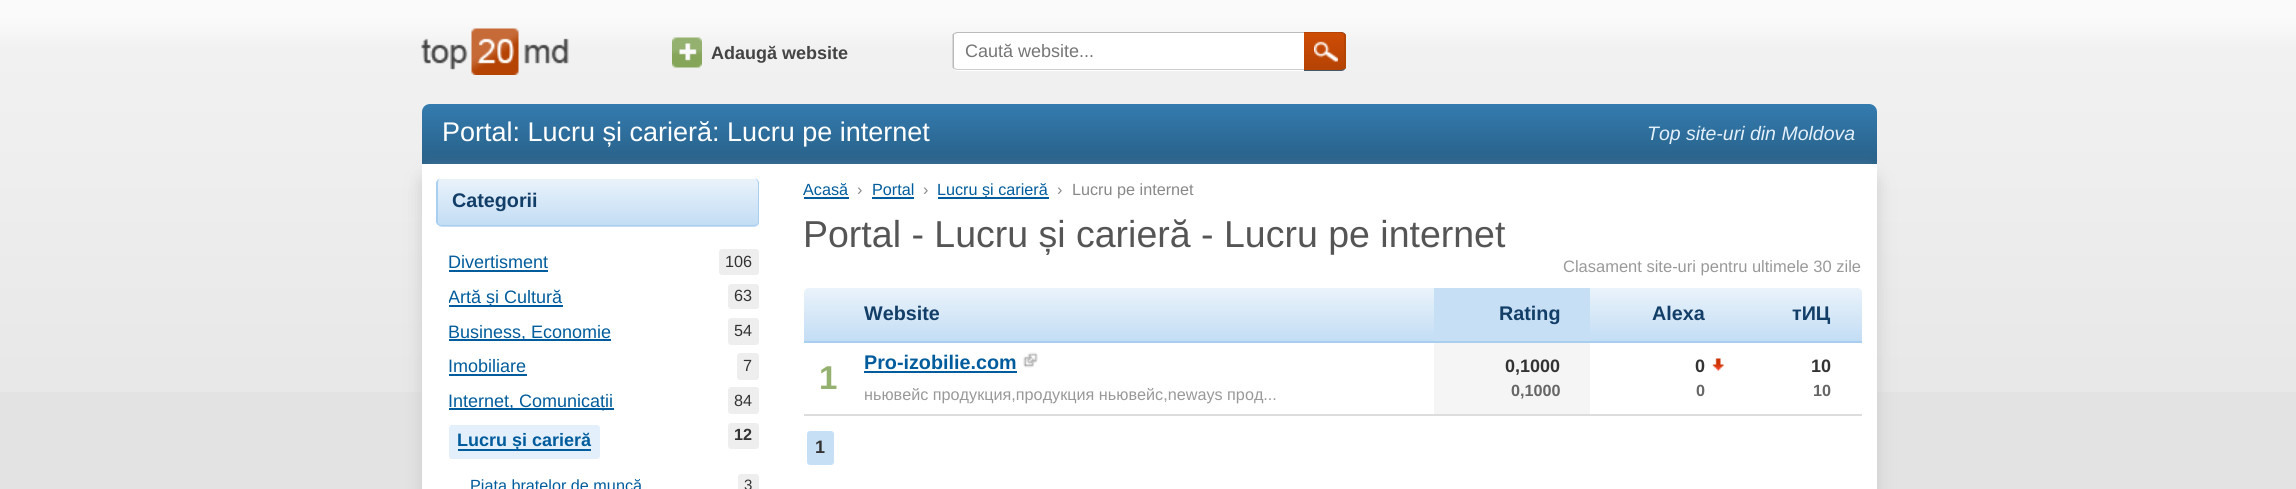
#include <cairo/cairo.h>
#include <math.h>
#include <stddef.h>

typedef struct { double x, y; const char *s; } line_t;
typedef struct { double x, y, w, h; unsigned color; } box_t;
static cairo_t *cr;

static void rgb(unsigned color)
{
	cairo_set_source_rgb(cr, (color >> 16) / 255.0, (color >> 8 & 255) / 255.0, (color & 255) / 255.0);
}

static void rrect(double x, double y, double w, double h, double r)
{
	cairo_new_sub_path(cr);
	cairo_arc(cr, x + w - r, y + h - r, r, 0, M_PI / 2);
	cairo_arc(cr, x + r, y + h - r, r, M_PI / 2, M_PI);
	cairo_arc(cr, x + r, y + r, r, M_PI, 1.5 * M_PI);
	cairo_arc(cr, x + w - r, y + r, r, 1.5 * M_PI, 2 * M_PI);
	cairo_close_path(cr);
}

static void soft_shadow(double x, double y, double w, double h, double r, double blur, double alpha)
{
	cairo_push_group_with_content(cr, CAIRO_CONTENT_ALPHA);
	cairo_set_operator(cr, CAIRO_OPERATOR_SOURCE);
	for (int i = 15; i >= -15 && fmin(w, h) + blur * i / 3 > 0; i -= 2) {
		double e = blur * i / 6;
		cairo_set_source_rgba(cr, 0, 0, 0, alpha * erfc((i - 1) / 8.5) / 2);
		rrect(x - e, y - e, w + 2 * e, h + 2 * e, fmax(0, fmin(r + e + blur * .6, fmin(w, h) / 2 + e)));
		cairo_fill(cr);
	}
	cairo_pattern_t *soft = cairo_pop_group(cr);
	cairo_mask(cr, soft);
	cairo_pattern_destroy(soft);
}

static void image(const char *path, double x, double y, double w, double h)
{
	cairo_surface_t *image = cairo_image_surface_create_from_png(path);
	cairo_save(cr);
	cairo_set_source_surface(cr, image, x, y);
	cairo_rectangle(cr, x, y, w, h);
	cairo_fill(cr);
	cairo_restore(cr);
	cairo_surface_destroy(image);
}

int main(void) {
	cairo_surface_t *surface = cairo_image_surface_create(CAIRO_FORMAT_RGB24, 2296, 489);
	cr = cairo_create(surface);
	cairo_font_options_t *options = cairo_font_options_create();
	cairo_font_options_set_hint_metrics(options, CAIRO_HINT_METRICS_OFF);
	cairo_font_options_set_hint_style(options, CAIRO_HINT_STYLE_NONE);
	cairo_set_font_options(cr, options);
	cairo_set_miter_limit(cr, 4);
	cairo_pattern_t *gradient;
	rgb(0xe3e3e3);
	cairo_paint(cr);
	image("img/1.png", 0, 0, 2296, 392);
	image("img/2.png", 421, 28, 148, 47);
	image("img/3.png", 672, 37, 30, 31);
	rgb(0xffffff);
	rrect(953, 32, 390, 39, 5);
	cairo_fill(cr);
	rgb(0xbbbbbb);
	cairo_new_path(cr);
	cairo_move_to(cr, 957, 32);
	cairo_line_to(cr, 1338, 32);
	cairo_curve_to(cr, 1340, 32, 1342, 34, 1342, 36);
	cairo_curve_to(cr, 1342, 34, 1340, 33, 1338, 33);
	cairo_line_to(cr, 957, 33);
	cairo_line_to(cr, 955, 34);
	cairo_line_to(cr, 954, 33);
	cairo_close_path(cr);
	cairo_fill(cr);
	rgb(0xcccccc);
	cairo_new_path(cr);
	cairo_move_to(cr, 955, 68);
	cairo_line_to(cr, 954, 69);
	cairo_line_to(cr, 957, 70);
	cairo_line_to(cr, 1338, 70);
	cairo_curve_to(cr, 1340, 70, 1342, 68, 1342, 66);
	cairo_curve_to(cr, 1342, 68, 1340, 69, 1338, 69);
	cairo_line_to(cr, 957, 69);
	cairo_close_path(cr);
	cairo_fill(cr);
	rgb(0xbbbbbb);
	cairo_new_path(cr);
	cairo_move_to(cr, 955, 68);
	cairo_line_to(cr, 954, 69);
	cairo_line_to(cr, 952.5, 67.5);
	cairo_line_to(cr, 952.5, 34.5);
	cairo_line_to(cr, 954, 33);
	cairo_line_to(cr, 955, 34);
	cairo_curve_to(cr, 954, 34, 954, 35, 954, 36);
	cairo_line_to(cr, 954, 66);
	cairo_curve_to(cr, 954, 67, 954, 68, 955, 68);
	cairo_close_path(cr);
	cairo_fill(cr);
	rgb(0x435a66);
	cairo_new_path(cr);
	cairo_move_to(cr, 1304, 32);
	cairo_line_to(cr, 1341, 32);
	cairo_curve_to(cr, 1344, 32, 1346, 34, 1346, 37);
	cairo_line_to(cr, 1346, 66);
	cairo_curve_to(cr, 1346, 69, 1344, 71, 1341, 71);
	cairo_line_to(cr, 1304, 71);
	cairo_close_path(cr);
	cairo_fill(cr);
	cairo_save(cr);
	cairo_new_path(cr);
	cairo_move_to(cr, 1304, 32);
	cairo_line_to(cr, 1341, 32);
	cairo_curve_to(cr, 1344, 32, 1346, 34, 1346, 37);
	cairo_line_to(cr, 1346, 66);
	cairo_curve_to(cr, 1346, 69, 1344, 71, 1341, 71);
	cairo_line_to(cr, 1304, 71);
	cairo_close_path(cr);
	cairo_clip(cr);
	gradient = cairo_pattern_create_linear(1324, 33, 1324, 69);
	cairo_pattern_add_color_stop_rgba(gradient, 0, 0.808, 0.298, 0.02, 1);
	cairo_pattern_add_color_stop_rgba(gradient, 1, 0.71, 0.263, 0.016, 1);
	cairo_set_source(cr, gradient);
	cairo_pattern_destroy(gradient);
	cairo_rectangle(cr, 1304, 33, 42, 36);
	cairo_fill(cr);
	cairo_restore(cr);
	rgb(0xb54304);
	cairo_set_fill_rule(cr, CAIRO_FILL_RULE_EVEN_ODD);
	cairo_new_path(cr);
	cairo_move_to(cr, 1304, 32);
	cairo_line_to(cr, 1341, 32);
	cairo_curve_to(cr, 1343, 32, 1346, 34, 1346, 36);
	cairo_line_to(cr, 1346, 66);
	cairo_curve_to(cr, 1346, 68, 1343, 70, 1341, 70);
	cairo_line_to(cr, 1304, 70);
	cairo_close_path(cr);
	cairo_move_to(cr, 1304, 33);
	cairo_line_to(cr, 1341, 33);
	cairo_curve_to(cr, 1343, 33, 1344, 34, 1344, 36);
	cairo_line_to(cr, 1344, 66);
	cairo_curve_to(cr, 1344, 68, 1343, 69, 1341, 69);
	cairo_line_to(cr, 1304, 69);
	cairo_close_path(cr);
	cairo_fill(cr);
	image("img/4.png", 1314, 41, 24, 21);
	gradient = cairo_pattern_create_linear(1149, 103, 1149, 164);
	cairo_pattern_add_color_stop_rgba(gradient, 0, 0.204, 0.486, 0.69, 1);
	cairo_pattern_add_color_stop_rgba(gradient, 1, 0.157, 0.376, 0.533, 1);
	cairo_set_source(cr, gradient);
	cairo_pattern_destroy(gradient);
	cairo_new_path(cr);
	cairo_move_to(cr, 430, 104);
	cairo_line_to(cr, 1869, 104);
	cairo_curve_to(cr, 1873.5, 104, 1877, 107.5, 1877, 112);
	cairo_line_to(cr, 1877, 164);
	cairo_line_to(cr, 422, 164);
	cairo_line_to(cr, 422, 112);
	cairo_curve_to(cr, 422, 107.5, 425.5, 104, 430, 104);
	cairo_close_path(cr);
	cairo_fill(cr);
	rgb(0xcccccc);
	soft_shadow(422, 176, 1455, 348, 8, 9, 1);
	rgb(0xffffff);
	cairo_rectangle(cr, 422, 164, 1455, 325);
	cairo_fill(cr);
	rgb(0xc7dff5);
	rrect(437, 179, 322, 48, 5);
	cairo_fill(cr);
	cairo_save(cr);
	cairo_set_fill_rule(cr, CAIRO_FILL_RULE_WINDING);
	rrect(437, 179, 322, 48, 5);
	cairo_clip(cr);
	gradient = cairo_pattern_create_linear(598, 178, 598, 225);
	cairo_pattern_add_color_stop_rgba(gradient, 0, 0.918, 0.953, 0.984, 1);
	cairo_pattern_add_color_stop_rgba(gradient, 1, 0.765, 0.867, 0.957, 1);
	cairo_set_source(cr, gradient);
	cairo_pattern_destroy(gradient);
	cairo_new_path(cr);
	cairo_move_to(cr, 442, 179);
	cairo_line_to(cr, 754, 179);
	cairo_curve_to(cr, 757, 179, 759, 181, 759, 184);
	cairo_line_to(cr, 759, 225);
	cairo_line_to(cr, 437, 225);
	cairo_line_to(cr, 437, 184);
	cairo_curve_to(cr, 437, 181, 439, 179, 442, 179);
	cairo_close_path(cr);
	cairo_fill(cr);
	cairo_restore(cr);
	rgb(0xa9cff0);
	cairo_new_path(cr);
	cairo_move_to(cr, 441, 178);
	cairo_line_to(cr, 754, 178);
	cairo_curve_to(cr, 757, 178, 759, 181, 759, 183);
	cairo_line_to(cr, 759, 222);
	cairo_curve_to(cr, 759, 224, 757, 226, 754, 226);
	cairo_line_to(cr, 441, 226);
	cairo_curve_to(cr, 439, 226, 436, 224, 436, 222);
	cairo_line_to(cr, 436, 183);
	cairo_curve_to(cr, 436, 181, 439, 178, 441, 178);
	cairo_close_path(cr);
	cairo_move_to(cr, 441, 178);
	cairo_line_to(cr, 754, 178);
	cairo_curve_to(cr, 756, 178, 758, 181, 758, 183);
	cairo_line_to(cr, 758, 222);
	cairo_curve_to(cr, 758, 224, 756, 225, 754, 225);
	cairo_line_to(cr, 441, 225);
	cairo_curve_to(cr, 439, 225, 438, 224, 438, 222);
	cairo_line_to(cr, 438, 183);
	cairo_curve_to(cr, 438, 181, 439, 178, 441, 178);
	cairo_close_path(cr);
	cairo_fill(cr);
	rgb(0x005c9c);
	cairo_rectangle(cr, 449, 270, 99, 2);
	cairo_fill(cr);
	rgb(0xeeeeee);
	rrect(719, 249, 40, 26, 3);
	cairo_fill(cr);
	rgb(0x005c9c);
	cairo_rectangle(cr, 449, 305, 114, 2);
	cairo_fill(cr);
	rgb(0xeeeeee);
	rrect(728, 284, 31, 25, 3);
	cairo_fill(cr);
	rgb(0x005c9c);
	cairo_rectangle(cr, 449, 339, 162, 2);
	cairo_fill(cr);
	rgb(0xeeeeee);
	rrect(728, 318, 31, 27, 3);
	cairo_fill(cr);
	rgb(0x005c9c);
	cairo_rectangle(cr, 449, 374, 78, 2);
	cairo_fill(cr);
	rgb(0xeeeeee);
	rrect(737, 353, 22, 27, 3);
	cairo_fill(cr);
	rgb(0x005c9c);
	cairo_rectangle(cr, 449, 408, 165, 2);
	cairo_fill(cr);
	rgb(0xeeeeee);
	rrect(728, 387, 31, 27, 3);
	cairo_fill(cr);
	rgb(0xe3effa);
	rrect(449, 425, 151, 34, 3);
	cairo_fill(cr);
	rgb(0x005c9c);
	cairo_rectangle(cr, 458, 449, 133, 2);
	cairo_fill(cr);
	rgb(0xeeeeee);
	rrect(728, 423, 31, 26, 3);
	cairo_fill(cr);
	rrect(738, 474, 21, 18, 3);
	cairo_fill(cr);
	{
		static const box_t items[] = {
			{804, 197, 45, 2, 0x005c9c},
			{872, 197, 42, 2, 0x005c9c},
			{938, 197, 111, 2, 0x005c9c},
		};
		for (size_t i = 0; i < sizeof items / sizeof *items; i++) {
			rgb(items[i].color);
			cairo_rectangle(cr, items[i].x, items[i].y, items[i].w, items[i].h);
			cairo_fill(cr);
		}
	}
	gradient = cairo_pattern_create_linear(1333, 288, 1333, 341);
	cairo_pattern_add_color_stop_rgba(gradient, 0, 0.918, 0.953, 0.984, 1);
	cairo_pattern_add_color_stop_rgba(gradient, 1, 0.765, 0.867, 0.957, 1);
	cairo_set_source(cr, gradient);
	cairo_pattern_destroy(gradient);
	cairo_new_path(cr);
	cairo_move_to(cr, 809, 288);
	cairo_line_to(cr, 1857, 288);
	cairo_curve_to(cr, 1860, 288, 1862, 290, 1862, 293);
	cairo_line_to(cr, 1862, 341);
	cairo_line_to(cr, 804, 341);
	cairo_line_to(cr, 804, 293);
	cairo_curve_to(cr, 804, 290, 806, 288, 809, 288);
	cairo_close_path(cr);
	cairo_fill(cr);
	{
		static const box_t items[] = {
			{1434, 288, 156, 53, 0xc7dff5},
			{804, 341, 1058, 2, 0xa9cff0},
			{864, 371, 153, 2, 0x005c9c},
		};
		for (size_t i = 0; i < sizeof items / sizeof *items; i++) {
			rgb(items[i].color);
			cairo_rectangle(cr, items[i].x, items[i].y, items[i].w, items[i].h);
			cairo_fill(cr);
		}
	}
	image("img/5.png", 1023, 352, 15, 16);
	rgb(0xf5f5f5);
	cairo_rectangle(cr, 1434, 343, 156, 71);
	cairo_fill(cr);
	image("img/6.png", 1712, 358, 12, 13);
	rgb(0xdddddd);
	cairo_rectangle(cr, 804, 414, 1058, 2);
	cairo_fill(cr);
	rgb(0xc6dff5);
	rrect(807, 431, 27, 34, 3);
	cairo_fill(cr);
	cairo_select_font_face(cr, "Liberation Sans", CAIRO_FONT_SLANT_NORMAL, CAIRO_FONT_WEIGHT_BOLD);
	cairo_set_font_size(cr, 18);
	rgb(0x444444);
	cairo_move_to(cr, 711, 59);
	cairo_show_text(cr, "Adaugă website");
	cairo_select_font_face(cr, "Liberation Sans", CAIRO_FONT_SLANT_NORMAL, CAIRO_FONT_WEIGHT_NORMAL);
	rgb(0x757575);
	cairo_move_to(cr, 965, 57);
	cairo_show_text(cr, "Caută website...");
	cairo_set_font_size(cr, 27);
	rgb(0xffffff);
	cairo_move_to(cr, 442, 141);
	cairo_show_text(cr, "Portal: Lucru și carieră: Lucru pe internet");
	cairo_select_font_face(cr, "Liberation Sans", CAIRO_FONT_SLANT_ITALIC, CAIRO_FONT_WEIGHT_NORMAL);
	cairo_set_font_size(cr, 19.5);
	rgb(0xe3effa);
	cairo_move_to(cr, 1647, 140);
	cairo_show_text(cr, "Top site-uri din Moldova");
	cairo_select_font_face(cr, "Liberation Sans", CAIRO_FONT_SLANT_NORMAL, CAIRO_FONT_WEIGHT_BOLD);
	cairo_set_font_size(cr, 19.75);
	rgb(0x123e67);
	cairo_move_to(cr, 452, 207);
	cairo_show_text(cr, "Categorii");
	cairo_select_font_face(cr, "Liberation Sans", CAIRO_FONT_SLANT_NORMAL, CAIRO_FONT_WEIGHT_NORMAL);
	cairo_set_font_size(cr, 18);
	rgb(0x005c9c);
	cairo_move_to(cr, 448, 268);
	cairo_show_text(cr, "Divertisment");
	cairo_set_font_size(cr, 16.2);
	rgb(0x333333);
	cairo_move_to(cr, 725, 267);
	cairo_show_text(cr, "106");
	cairo_save(cr);
	cairo_set_fill_rule(cr, CAIRO_FILL_RULE_WINDING);
	cairo_rectangle(cr, 449, 239, 310, 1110);
	cairo_clip(cr);
	cairo_set_font_size(cr, 18);
	rgb(0x005c9c);
	cairo_move_to(cr, 448, 303);
	cairo_show_text(cr, "Artă și Cultură");
	cairo_restore(cr);
	cairo_move_to(cr, 734, 301);
	cairo_show_text(cr, "63");
	cairo_set_font_size(cr, 18);
	rgb(0x005c9c);
	cairo_move_to(cr, 448, 338);
	cairo_show_text(cr, "Business, Economie");
	cairo_set_font_size(cr, 16.2);
	rgb(0x333333);
	cairo_move_to(cr, 734, 336);
	cairo_show_text(cr, "54");
	cairo_set_font_size(cr, 18);
	rgb(0x005c9c);
	cairo_move_to(cr, 448, 372);
	cairo_show_text(cr, "Imobiliare");
	cairo_set_font_size(cr, 16.2);
	rgb(0x333333);
	cairo_move_to(cr, 743, 371);
	cairo_show_text(cr, "7");
	cairo_set_font_size(cr, 18);
	rgb(0x005c9c);
	cairo_move_to(cr, 448, 407);
	cairo_show_text(cr, "Internet, Comunicații");
	cairo_set_font_size(cr, 16.2);
	rgb(0x333333);
	cairo_move_to(cr, 734, 406);
	cairo_show_text(cr, "84");
	cairo_select_font_face(cr, "Liberation Sans", CAIRO_FONT_SLANT_NORMAL, CAIRO_FONT_WEIGHT_BOLD);
	cairo_set_font_size(cr, 18);
	rgb(0x005c9c);
	cairo_move_to(cr, 457, 446);
	cairo_show_text(cr, "Lucru și carieră");
	cairo_set_font_size(cr, 16.2);
	rgb(0x333333);
	cairo_move_to(cr, 734, 440);
	cairo_show_text(cr, "12");
	cairo_select_font_face(cr, "Liberation Sans", CAIRO_FONT_SLANT_NORMAL, CAIRO_FONT_WEIGHT_NORMAL);
	rgb(0x005c9c);
	cairo_move_to(cr, 470, 491);
	cairo_show_text(cr, "Piața brațelor de muncă");
	cairo_set_font_size(cr, 15);
	rgb(0x333333);
	cairo_move_to(cr, 744, 490);
	cairo_show_text(cr, "3");
	cairo_set_font_size(cr, 16.2);
	rgb(0x005c9c);
	cairo_move_to(cr, 803, 195);
	cairo_show_text(cr, "Acasă");
	rgb(0x888888);
	cairo_move_to(cr, 857, 195);
	cairo_show_text(cr, "›");
	rgb(0x005c9c);
	cairo_move_to(cr, 872, 195);
	cairo_show_text(cr, "Portal");
	rgb(0x888888);
	cairo_move_to(cr, 923, 195);
	cairo_show_text(cr, "›");
	rgb(0x005c9c);
	cairo_move_to(cr, 937, 195);
	cairo_show_text(cr, "Lucru și carieră");
	rgb(0x888888);
	cairo_move_to(cr, 1057, 195);
	cairo_show_text(cr, "›");
	cairo_move_to(cr, 1072, 195);
	cairo_show_text(cr, "Lucru pe internet");
	cairo_set_font_size(cr, 37.5);
	rgb(0x555555);
	cairo_move_to(cr, 803, 247);
	cairo_show_text(cr, "Portal - Lucru și carieră - Lucru pe internet");
	cairo_set_font_size(cr, 16.5);
	rgb(0x999999);
	cairo_move_to(cr, 1563, 272);
	cairo_show_text(cr, "Clasament site-uri pentru ultimele 30 zile");
	cairo_select_font_face(cr, "Liberation Sans", CAIRO_FONT_SLANT_NORMAL, CAIRO_FONT_WEIGHT_BOLD);
	cairo_set_font_size(cr, 19.75);
	rgb(0x123e67);
	{
		static const line_t items[] = {
			{864, 320, "Website"},
			{1499, 320, "Rating"},
			{1652, 320, "Alexa"},
			{1792, 320, "тИЦ"},
		};
		for (size_t i = 0; i < sizeof items / sizeof *items; i++) {
			cairo_move_to(cr, items[i].x, items[i].y);
			cairo_show_text(cr, items[i].s);
		}
	}
	cairo_set_font_size(cr, 33);
	rgb(0x95b16f);
	cairo_move_to(cr, 819, 389);
	cairo_show_text(cr, "1");
	cairo_set_font_size(cr, 19.75);
	rgb(0x005c9c);
	cairo_move_to(cr, 864, 369);
	cairo_show_text(cr, "Pro-izobilie.com");
	cairo_select_font_face(cr, "Liberation Sans", CAIRO_FONT_SLANT_NORMAL, CAIRO_FONT_WEIGHT_NORMAL);
	cairo_set_font_size(cr, 16.2);
	rgb(0x999999);
	cairo_move_to(cr, 864, 400);
	cairo_show_text(cr, "ньювейс продукция,продукция ньювейс,neways прод...");
	cairo_select_font_face(cr, "Liberation Sans", CAIRO_FONT_SLANT_NORMAL, CAIRO_FONT_WEIGHT_BOLD);
	cairo_set_font_size(cr, 18);
	rgb(0x333333);
	cairo_move_to(cr, 1505, 372);
	cairo_show_text(cr, "0,1000");
	cairo_set_font_size(cr, 16.2);
	rgb(0x666666);
	cairo_move_to(cr, 1511, 396);
	cairo_show_text(cr, "0,1000");
	cairo_set_font_size(cr, 18);
	rgb(0x333333);
	cairo_move_to(cr, 1695, 372);
	cairo_show_text(cr, "0");
	cairo_set_font_size(cr, 16.2);
	rgb(0x666666);
	cairo_move_to(cr, 1696, 396);
	cairo_show_text(cr, "0");
	cairo_set_font_size(cr, 18);
	rgb(0x333333);
	cairo_move_to(cr, 1811, 372);
	cairo_show_text(cr, "10");
	cairo_set_font_size(cr, 16.2);
	rgb(0x666666);
	cairo_move_to(cr, 1813, 396);
	cairo_show_text(cr, "10");
	cairo_set_font_size(cr, 18);
	rgb(0x333333);
	cairo_move_to(cr, 815, 453);
	cairo_show_text(cr, "1");
	cairo_surface_write_to_png(surface, "page.png");
	cairo_font_options_destroy(options);
	cairo_destroy(cr);
	cairo_surface_destroy(surface);
	return 0;
}
